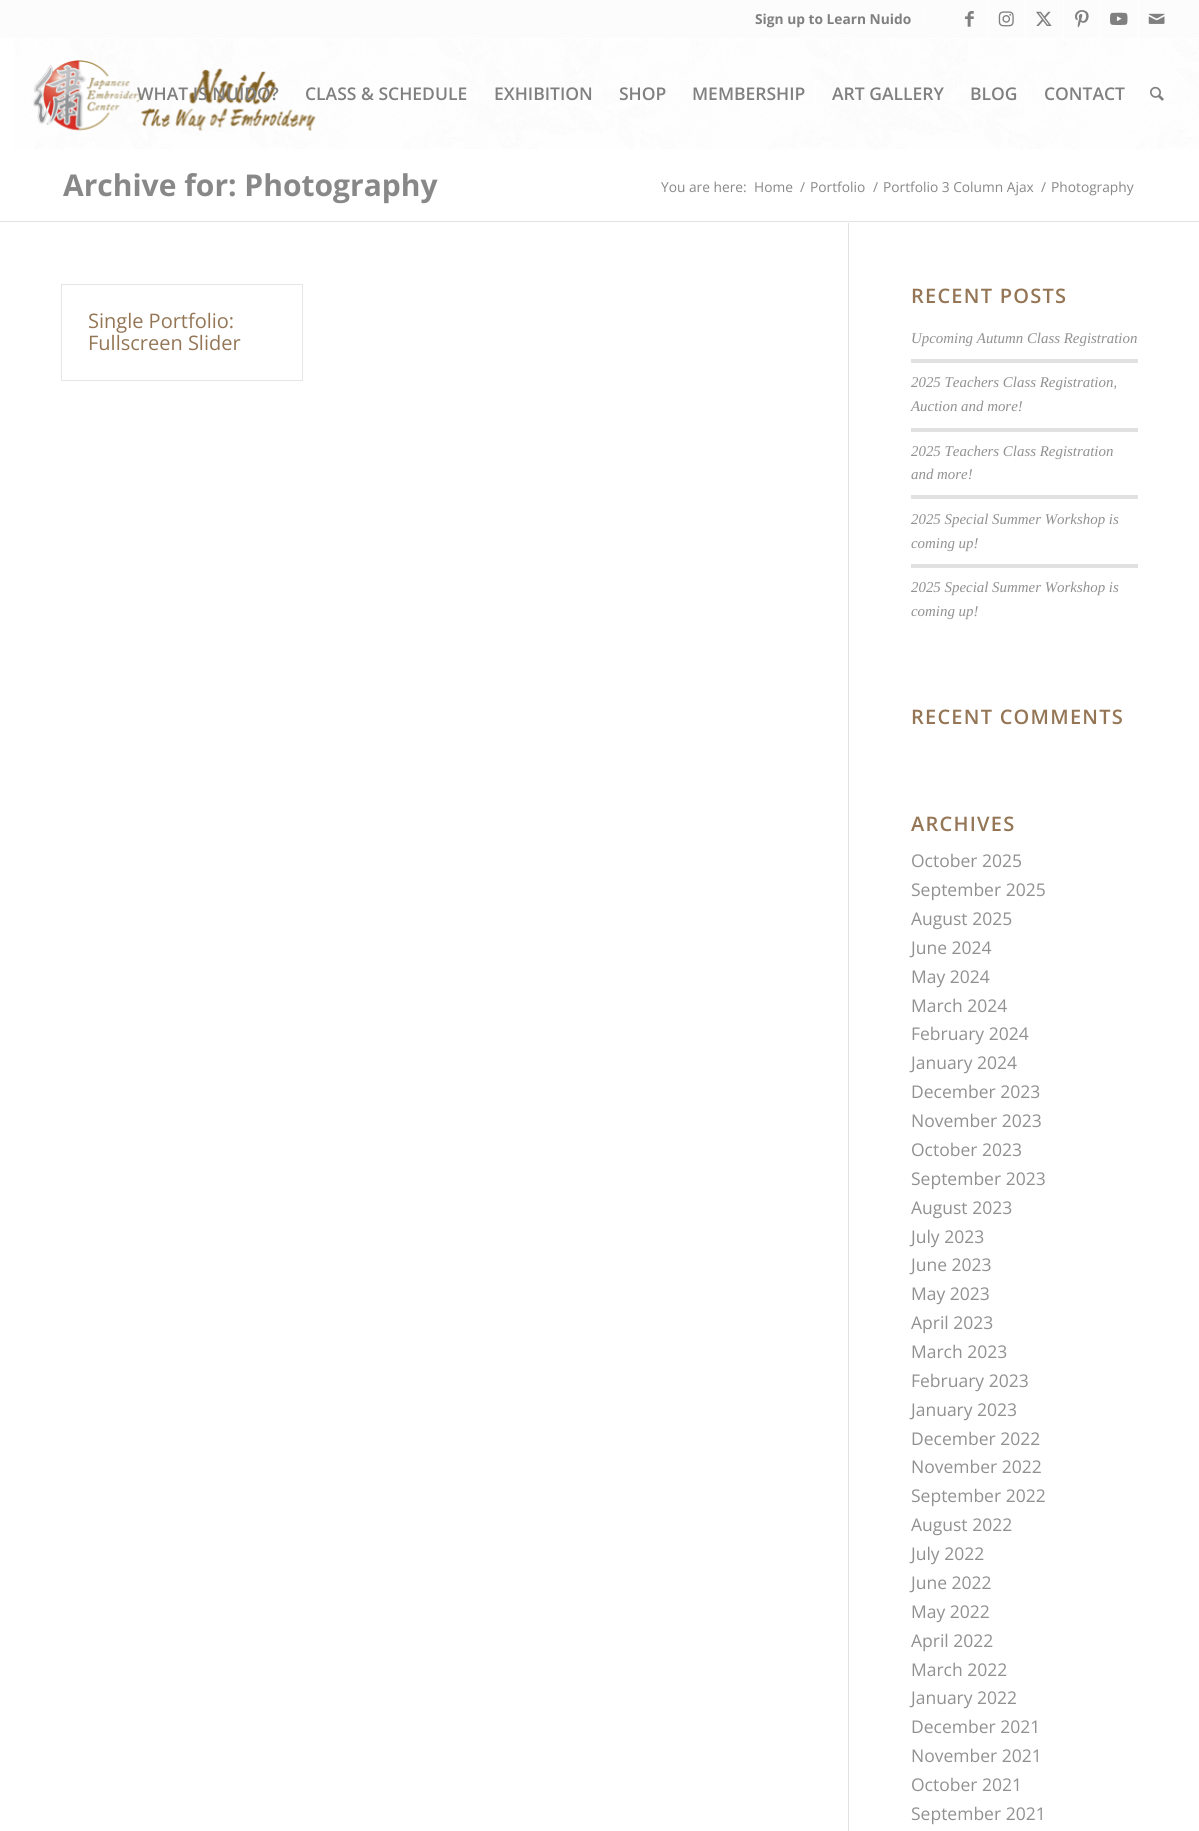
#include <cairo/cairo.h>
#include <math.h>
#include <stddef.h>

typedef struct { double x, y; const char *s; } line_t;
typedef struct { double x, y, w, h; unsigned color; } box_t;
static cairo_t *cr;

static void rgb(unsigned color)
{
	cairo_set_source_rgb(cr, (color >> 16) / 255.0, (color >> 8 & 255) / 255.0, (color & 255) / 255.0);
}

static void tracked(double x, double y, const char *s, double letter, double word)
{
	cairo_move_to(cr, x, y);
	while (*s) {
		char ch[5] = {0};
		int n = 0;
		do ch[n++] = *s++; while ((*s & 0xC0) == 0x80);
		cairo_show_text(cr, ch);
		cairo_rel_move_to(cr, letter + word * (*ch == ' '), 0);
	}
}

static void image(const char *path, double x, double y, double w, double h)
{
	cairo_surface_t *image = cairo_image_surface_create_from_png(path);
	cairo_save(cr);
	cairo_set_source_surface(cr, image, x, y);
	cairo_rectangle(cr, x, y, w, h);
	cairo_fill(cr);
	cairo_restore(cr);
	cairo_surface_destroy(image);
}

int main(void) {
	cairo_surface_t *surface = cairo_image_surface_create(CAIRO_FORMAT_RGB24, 1199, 1831);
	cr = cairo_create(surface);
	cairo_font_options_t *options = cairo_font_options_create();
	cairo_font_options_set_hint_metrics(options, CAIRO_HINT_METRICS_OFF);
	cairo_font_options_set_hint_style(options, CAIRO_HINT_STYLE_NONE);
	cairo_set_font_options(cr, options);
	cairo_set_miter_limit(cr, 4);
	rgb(0xffffff);
	cairo_paint(cr);
	{
		static const box_t items[] = {
			{0, 0, 1199, 38, 0xfcfcfc},
			{924, 13, 1, 12, 0xffffff},
			{988, 0, 1, 38, 0xffffff},
		};
		for (size_t i = 0; i < sizeof items / sizeof *items; i++) {
			rgb(items[i].color);
			cairo_rectangle(cr, items[i].x, items[i].y, items[i].w, items[i].h);
			cairo_fill(cr);
		}
	}
	image("img/1.png", 965, 11, 9, 16);
	cairo_rectangle(cr, 1025, 0, 1, 38);
	cairo_fill(cr);
	image("img/2.png", 998, 11, 16, 16);
	cairo_rectangle(cr, 1063, 0, 1, 38);
	cairo_fill(cr);
	image("img/3.png", 1036, 11, 16, 15);
	cairo_rectangle(cr, 1100, 0, 1, 38);
	cairo_fill(cr);
	image("img/4.png", 1075, 10, 14, 18);
	cairo_rectangle(cr, 1138, 0, 1, 38);
	cairo_fill(cr);
	image("img/5.png", 1110, 12, 18, 13);
	image("img/6.png", 1148, 13, 17, 11);
	image("img/7.png", 14, 39, 1185, 110);
	image("img/8.png", 33, 60, 283, 71);
	{
		static const box_t items[] = {
			{288, 94, 1, 11, 0xffffff},
			{476, 81, 1, 24, 0xffffff},
			{601, 95, 1, 10, 0xffffff},
			{675, 102, 1, 3, 0xffffff},
			{815, 81, 1, 24, 0xffffff},
			{953, 81, 1, 24, 0xffffff},
			{1026, 81, 1, 24, 0xffffff},
		};
		for (size_t i = 0; i < sizeof items / sizeof *items; i++) {
			rgb(items[i].color);
			cairo_rectangle(cr, items[i].x, items[i].y, items[i].w, items[i].h);
			cairo_fill(cr);
		}
	}
	image("img/9.png", 1150, 86, 14, 15);
	rgb(0xe1e1e1);
	cairo_rectangle(cr, 0, 221, 1199, 1);
	cairo_fill(cr);
	cairo_rectangle(cr, 61.5, 284.5, 241, 96);
	rgb(0xe6e6e6);
	cairo_set_line_width(cr, 1);
	cairo_stroke(cr);
	{
		static const box_t items[] = {
			{848, 223, 1, 1608, 0xe1e1e1},
			{911, 359, 227, 4, 0xe1e1e1},
			{911, 428, 227, 4, 0xe1e1e1},
			{911, 495, 227, 4, 0xe1e1e1},
			{911, 564, 227, 4, 0xe1e1e1},
		};
		for (size_t i = 0; i < sizeof items / sizeof *items; i++) {
			rgb(items[i].color);
			cairo_rectangle(cr, items[i].x, items[i].y, items[i].w, items[i].h);
			cairo_fill(cr);
		}
	}
	cairo_select_font_face(cr, "Open Sans", CAIRO_FONT_SLANT_NORMAL, CAIRO_FONT_WEIGHT_BOLD);
	cairo_set_font_size(cr, 13.75);
	rgb(0x808080);
	cairo_move_to(cr, 755, 24);
	cairo_show_text(cr, "Sign up to Learn Nuido");
	cairo_select_font_face(cr, "Open Sans SemiBold", CAIRO_FONT_SLANT_NORMAL, CAIRO_FONT_WEIGHT_NORMAL);
	cairo_set_font_size(cr, 17.5);
	{
		static const line_t items[] = {
			{137, 100, "WHAT IS NUIDO?"},
			{305, 100, "CLASS & SCHEDULE"},
			{494, 100, "EXHIBITION"},
			{619, 100, "SHOP"},
			{692, 100, "MEMBERSHIP"},
			{832, 100, "ART GALLERY"},
			{970, 100, "BLOG"},
			{1044, 100, "CONTACT"},
		};
		for (size_t i = 0; i < sizeof items / sizeof *items; i++) {
			cairo_move_to(cr, items[i].x, items[i].y);
			cairo_show_text(cr, items[i].s);
		}
	}
	cairo_select_font_face(cr, "Open Sans", CAIRO_FONT_SLANT_NORMAL, CAIRO_FONT_WEIGHT_BOLD);
	cairo_set_font_size(cr, 30);
	rgb(0x888888);
	cairo_move_to(cr, 63, 196);
	cairo_show_text(cr, "Archive for: Photography");
	cairo_select_font_face(cr, "Open Sans", CAIRO_FONT_SLANT_NORMAL, CAIRO_FONT_WEIGHT_NORMAL);
	cairo_set_font_size(cr, 13.75);
	{
		static const line_t items[] = {
			{661, 192, "You are here:"},
			{754, 192, "Home"},
			{800, 192, "/"},
			{810, 192, "Portfolio"},
			{873, 192, "/"},
			{883, 192, "Portfolio 3 Column Ajax"},
			{1041, 192, "/"},
			{1051, 192, "Photography"},
		};
		for (size_t i = 0; i < sizeof items / sizeof *items; i++) {
			cairo_move_to(cr, items[i].x, items[i].y);
			cairo_show_text(cr, items[i].s);
		}
	}
	cairo_set_font_size(cr, 20);
	rgb(0x947656);
	cairo_move_to(cr, 88, 328);
	cairo_show_text(cr, "Single Portfolio:");
	cairo_move_to(cr, 88, 350);
	cairo_show_text(cr, "Fullscreen Slider");
	cairo_select_font_face(cr, "Open Sans SemiBold", CAIRO_FONT_SLANT_NORMAL, CAIRO_FONT_WEIGHT_NORMAL);
	tracked(911, 303, "RECENT POSTS", 1.25, 0);
	cairo_select_font_face(cr, "Liberation Serif", CAIRO_FONT_SLANT_ITALIC, CAIRO_FONT_WEIGHT_NORMAL);
	cairo_set_font_size(cr, 14.9);
	rgb(0x919191);
	{
		static const line_t items[] = {
			{911, 343, "Upcoming Autumn Class Registration"},
			{911, 387, "2025 Teachers Class Registration,"},
			{911, 411, "Auction and more!"},
			{911, 456, "2025 Teachers Class Registration"},
			{911, 479, "and more!"},
			{911, 524, "2025 Special Summer Workshop is"},
			{911, 548, "coming up!"},
			{911, 592, "2025 Special Summer Workshop is"},
			{911, 616, "coming up!"},
		};
		for (size_t i = 0; i < sizeof items / sizeof *items; i++) {
			cairo_move_to(cr, items[i].x, items[i].y);
			cairo_show_text(cr, items[i].s);
		}
	}
	cairo_select_font_face(cr, "Open Sans SemiBold", CAIRO_FONT_SLANT_NORMAL, CAIRO_FONT_WEIGHT_NORMAL);
	cairo_set_font_size(cr, 20);
	rgb(0x947656);
	tracked(911, 724, "RECENT COMMENTS", 1.25, 0);
	tracked(911, 831, "ARCHIVES", 1.25, 0);
	cairo_select_font_face(cr, "Open Sans", CAIRO_FONT_SLANT_NORMAL, CAIRO_FONT_WEIGHT_NORMAL);
	cairo_set_font_size(cr, 17.5);
	rgb(0x919191);
	{
		static const line_t items[] = {
			{911, 867, "October 2025"},
			{911, 896, "September 2025"},
			{911, 925, "August 2025"},
			{911, 954, "June 2024"},
			{911, 983, "May 2024"},
			{911, 1012, "March 2024"},
			{911, 1040, "February 2024"},
			{911, 1069, "January 2024"},
			{911, 1098, "December 2023"},
			{911, 1127, "November 2023"},
			{911, 1156, "October 2023"},
			{911, 1185, "September 2023"},
			{911, 1214, "August 2023"},
			{911, 1243, "July 2023"},
			{911, 1271, "June 2023"},
			{911, 1300, "May 2023"},
			{911, 1329, "April 2023"},
			{911, 1358, "March 2023"},
			{911, 1387, "February 2023"},
			{911, 1416, "January 2023"},
			{911, 1445, "December 2022"},
			{911, 1473, "November 2022"},
			{911, 1502, "September 2022"},
			{911, 1531, "August 2022"},
			{911, 1560, "July 2022"},
			{911, 1589, "June 2022"},
			{911, 1618, "May 2022"},
			{911, 1647, "April 2022"},
			{911, 1676, "March 2022"},
			{911, 1704, "January 2022"},
			{911, 1733, "December 2021"},
			{911, 1762, "November 2021"},
			{911, 1791, "October 2021"},
			{911, 1820, "September 2021"},
		};
		for (size_t i = 0; i < sizeof items / sizeof *items; i++) {
			cairo_move_to(cr, items[i].x, items[i].y);
			cairo_show_text(cr, items[i].s);
		}
	}
	cairo_surface_write_to_png(surface, "page.png");
	cairo_font_options_destroy(options);
	cairo_destroy(cr);
	cairo_surface_destroy(surface);
	return 0;
}
